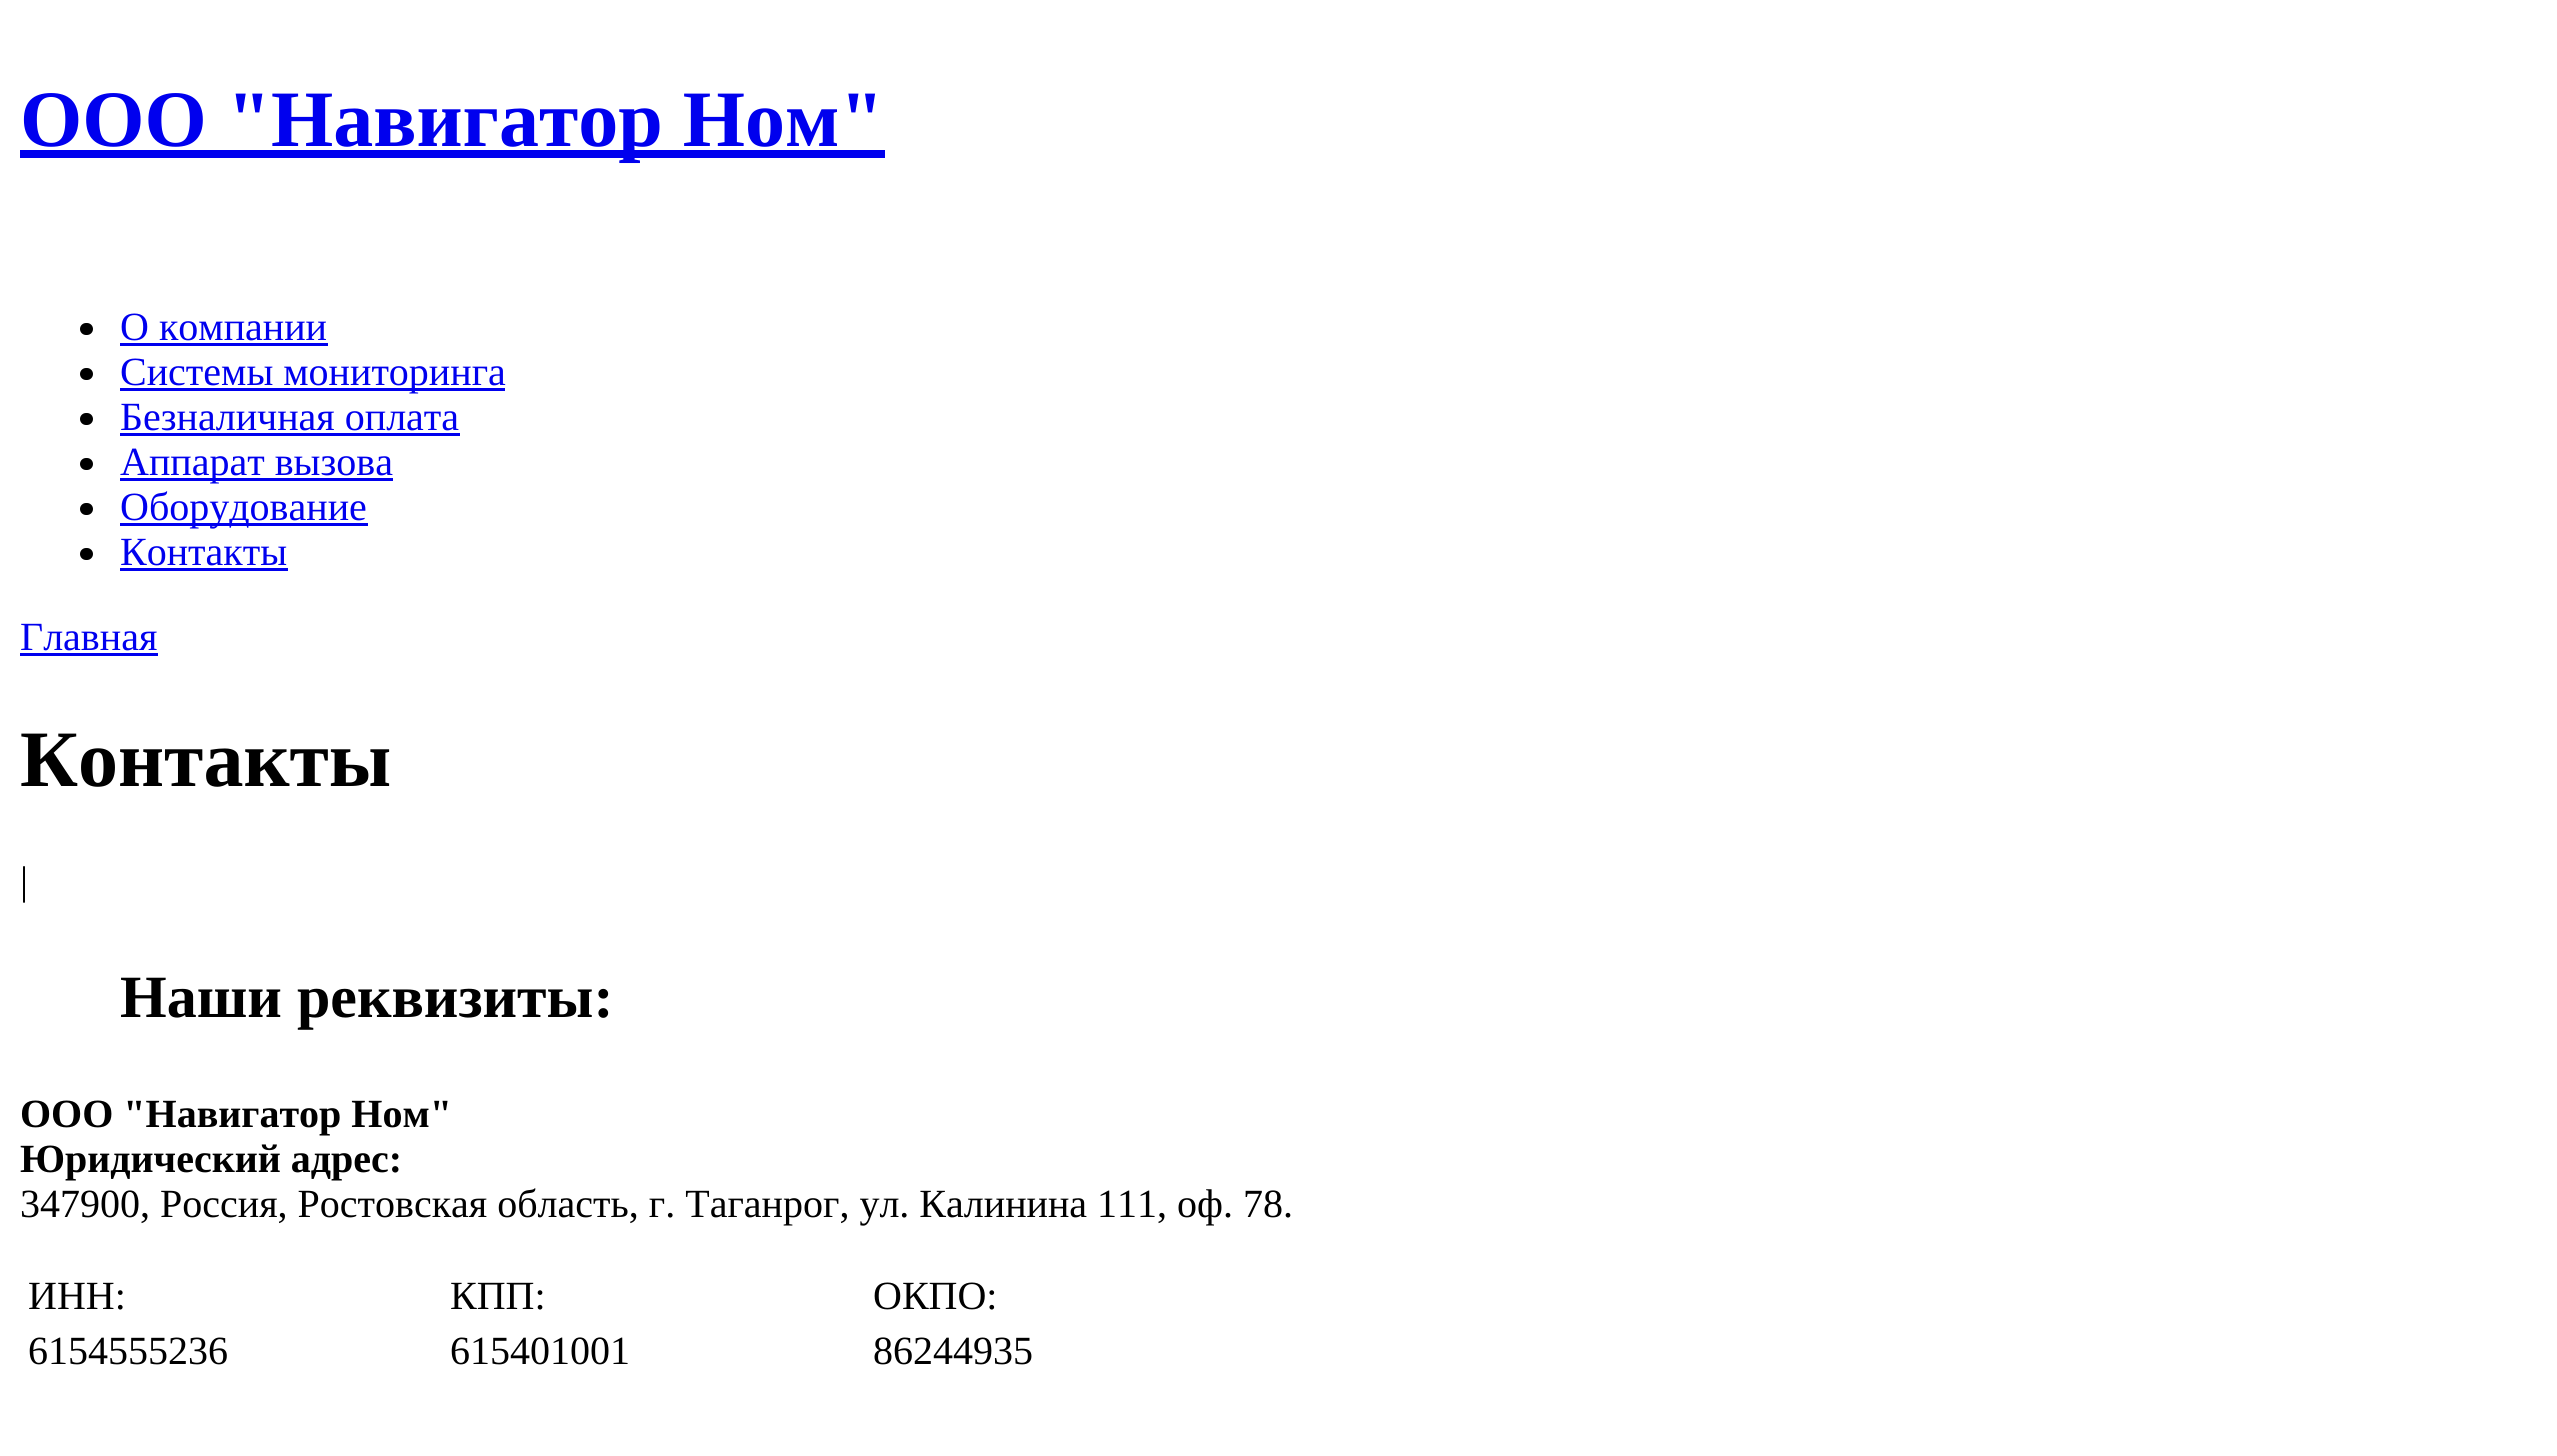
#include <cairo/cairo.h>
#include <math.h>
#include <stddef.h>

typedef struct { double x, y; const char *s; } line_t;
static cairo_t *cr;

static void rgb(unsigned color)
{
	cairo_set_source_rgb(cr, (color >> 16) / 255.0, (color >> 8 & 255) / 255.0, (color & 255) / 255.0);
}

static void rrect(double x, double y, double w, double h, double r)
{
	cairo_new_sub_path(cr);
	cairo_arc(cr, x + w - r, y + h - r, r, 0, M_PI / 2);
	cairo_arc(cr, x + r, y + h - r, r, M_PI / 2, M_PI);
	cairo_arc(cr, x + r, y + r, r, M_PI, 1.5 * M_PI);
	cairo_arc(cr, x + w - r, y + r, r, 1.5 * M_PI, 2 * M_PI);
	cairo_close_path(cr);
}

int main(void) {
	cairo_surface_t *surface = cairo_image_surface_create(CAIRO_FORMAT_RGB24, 2557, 1456);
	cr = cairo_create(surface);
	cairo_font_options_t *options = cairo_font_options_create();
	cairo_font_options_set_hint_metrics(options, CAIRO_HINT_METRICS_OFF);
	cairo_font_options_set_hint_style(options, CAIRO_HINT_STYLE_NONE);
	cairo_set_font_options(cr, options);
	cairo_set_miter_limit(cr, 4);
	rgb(0xffffff);
	cairo_paint(cr);
	rgb(0x0000ee);
	cairo_rectangle(cr, 20, 150, 865, 8);
	cairo_fill(cr);
	rgb(0x000000);
	rrect(80, 323, 13, 12, 6);
	cairo_fill(cr);
	rgb(0x0000ee);
	cairo_rectangle(cr, 120, 343, 208, 3);
	cairo_fill(cr);
	rgb(0x000000);
	rrect(80, 368, 13, 12, 6);
	cairo_fill(cr);
	rgb(0x0000ee);
	cairo_rectangle(cr, 120, 388, 385, 3);
	cairo_fill(cr);
	rgb(0x000000);
	rrect(80, 413, 13, 12, 6);
	cairo_fill(cr);
	rgb(0x0000ee);
	cairo_rectangle(cr, 120, 433, 340, 3);
	cairo_fill(cr);
	rgb(0x000000);
	rrect(80, 458, 13, 12, 6);
	cairo_fill(cr);
	rgb(0x0000ee);
	cairo_rectangle(cr, 120, 478, 273, 3);
	cairo_fill(cr);
	rgb(0x000000);
	rrect(80, 503, 13, 12, 6);
	cairo_fill(cr);
	rgb(0x0000ee);
	cairo_rectangle(cr, 120, 523, 248, 3);
	cairo_fill(cr);
	rgb(0x000000);
	rrect(80, 548, 13, 12, 6);
	cairo_fill(cr);
	rgb(0x0000ee);
	cairo_rectangle(cr, 120, 568, 168, 3);
	cairo_fill(cr);
	cairo_rectangle(cr, 20, 653, 138, 3);
	cairo_fill(cr);
	cairo_select_font_face(cr, "Liberation Serif", CAIRO_FONT_SLANT_NORMAL, CAIRO_FONT_WEIGHT_BOLD);
	cairo_set_font_size(cr, 80);
	cairo_move_to(cr, 20, 146);
	cairo_show_text(cr, "ООО \"Навигатор Ном\"");
	cairo_select_font_face(cr, "Liberation Serif", CAIRO_FONT_SLANT_NORMAL, CAIRO_FONT_WEIGHT_NORMAL);
	cairo_set_font_size(cr, 40);
	{
		static const line_t items[] = {
			{120, 340, "О компании"},
			{120, 385, "Системы мониторинга"},
			{120, 430, "Безналичная оплата"},
			{120, 475, "Аппарат вызова"},
			{120, 520, "Оборудование"},
			{120, 565, "Контакты"},
			{20, 650, "Главная"},
		};
		for (size_t i = 0; i < sizeof items / sizeof *items; i++) {
			cairo_move_to(cr, items[i].x, items[i].y);
			cairo_show_text(cr, items[i].s);
		}
	}
	cairo_select_font_face(cr, "Liberation Serif", CAIRO_FONT_SLANT_NORMAL, CAIRO_FONT_WEIGHT_BOLD);
	cairo_set_font_size(cr, 80);
	rgb(0x000000);
	cairo_move_to(cr, 20, 786);
	cairo_show_text(cr, "Контакты");
	cairo_select_font_face(cr, "Liberation Serif", CAIRO_FONT_SLANT_NORMAL, CAIRO_FONT_WEIGHT_NORMAL);
	cairo_set_font_size(cr, 40);
	cairo_move_to(cr, 20, 894);
	cairo_show_text(cr, "|");
	cairo_select_font_face(cr, "Liberation Serif", CAIRO_FONT_SLANT_NORMAL, CAIRO_FONT_WEIGHT_BOLD);
	cairo_set_font_size(cr, 60);
	cairo_move_to(cr, 120, 1017);
	cairo_show_text(cr, "Наши реквизиты:");
	cairo_set_font_size(cr, 40);
	cairo_move_to(cr, 20, 1127);
	cairo_show_text(cr, "ООО \"Навигатор Ном\"");
	cairo_move_to(cr, 20, 1172);
	cairo_show_text(cr, "Юридический адрес:");
	cairo_select_font_face(cr, "Liberation Serif", CAIRO_FONT_SLANT_NORMAL, CAIRO_FONT_WEIGHT_NORMAL);
	{
		static const line_t items[] = {
			{20, 1217, "347900, Россия, Ростовская область, г. Таганрог, ул. Калинина 111, оф. 78."},
			{28, 1309, "ИНН:"},
			{450, 1309, "КПП:"},
			{873, 1309, "ОКПО:"},
			{28, 1364, "6154555236"},
			{450, 1364, "615401001"},
			{873, 1364, "86244935"},
		};
		for (size_t i = 0; i < sizeof items / sizeof *items; i++) {
			cairo_move_to(cr, items[i].x, items[i].y);
			cairo_show_text(cr, items[i].s);
		}
	}
	cairo_surface_write_to_png(surface, "page.png");
	cairo_font_options_destroy(options);
	cairo_destroy(cr);
	cairo_surface_destroy(surface);
	return 0;
}
